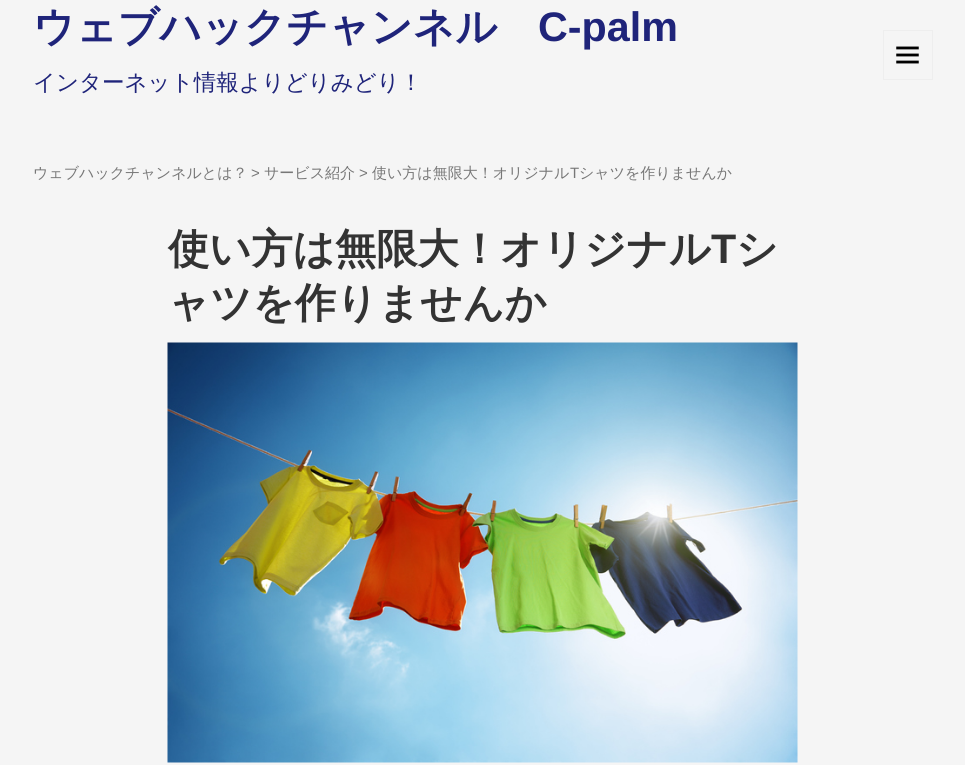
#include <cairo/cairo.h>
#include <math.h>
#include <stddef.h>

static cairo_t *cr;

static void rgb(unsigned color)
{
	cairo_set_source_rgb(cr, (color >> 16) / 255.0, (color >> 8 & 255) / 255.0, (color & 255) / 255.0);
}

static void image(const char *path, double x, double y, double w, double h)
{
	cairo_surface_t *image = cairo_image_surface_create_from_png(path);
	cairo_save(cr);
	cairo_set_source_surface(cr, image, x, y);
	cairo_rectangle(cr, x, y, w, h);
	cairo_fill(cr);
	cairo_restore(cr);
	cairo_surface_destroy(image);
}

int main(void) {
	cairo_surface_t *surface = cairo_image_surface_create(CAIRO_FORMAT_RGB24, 965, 765);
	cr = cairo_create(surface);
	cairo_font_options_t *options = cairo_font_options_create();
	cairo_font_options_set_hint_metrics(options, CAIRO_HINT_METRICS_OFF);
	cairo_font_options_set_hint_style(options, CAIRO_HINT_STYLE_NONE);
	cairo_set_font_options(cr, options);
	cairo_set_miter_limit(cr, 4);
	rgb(0xf5f5f5);
	cairo_paint(cr);
	cairo_rectangle(cr, 883.5, 30.5, 49, 49);
	rgb(0xeeeeee);
	cairo_set_line_width(cr, 1);
	cairo_stroke(cr);
	image("img/1.png", 896, 46, 23, 18);
	image("img/2.png", 167, 342, 631, 421);
	cairo_select_font_face(cr, "WenQuanYi Zen Hei", CAIRO_FONT_SLANT_NORMAL, CAIRO_FONT_WEIGHT_BOLD);
	cairo_set_font_size(cr, 41.25);
	rgb(0x1f247a);
	cairo_move_to(cr, 33, 41);
	cairo_show_text(cr, "ウェブハックチャンネル");
	cairo_select_font_face(cr, "Liberation Sans", CAIRO_FONT_SLANT_NORMAL, CAIRO_FONT_WEIGHT_BOLD);
	cairo_move_to(cr, 538, 41);
	cairo_show_text(cr, "C-palm");
	cairo_select_font_face(cr, "WenQuanYi Zen Hei Medium", CAIRO_FONT_SLANT_NORMAL, CAIRO_FONT_WEIGHT_NORMAL);
	cairo_set_font_size(cr, 22.5);
	cairo_move_to(cr, 33, 90);
	cairo_show_text(cr, "インターネット情報よりどりみどり！");
	cairo_set_font_size(cr, 15);
	rgb(0x777777);
	cairo_move_to(cr, 33, 178);
	cairo_show_text(cr, "ウェブハックチャンネルとは？");
	cairo_select_font_face(cr, "Liberation Sans", CAIRO_FONT_SLANT_NORMAL, CAIRO_FONT_WEIGHT_NORMAL);
	cairo_move_to(cr, 251, 178);
	cairo_show_text(cr, ">");
	cairo_select_font_face(cr, "WenQuanYi Zen Hei Medium", CAIRO_FONT_SLANT_NORMAL, CAIRO_FONT_WEIGHT_NORMAL);
	cairo_move_to(cr, 264, 178);
	cairo_show_text(cr, "サービス紹介");
	cairo_select_font_face(cr, "Liberation Sans", CAIRO_FONT_SLANT_NORMAL, CAIRO_FONT_WEIGHT_NORMAL);
	cairo_move_to(cr, 359, 178);
	cairo_show_text(cr, ">");
	cairo_select_font_face(cr, "WenQuanYi Zen Hei Medium", CAIRO_FONT_SLANT_NORMAL, CAIRO_FONT_WEIGHT_NORMAL);
	cairo_move_to(cr, 372, 178);
	cairo_show_text(cr, "使い方は無限大！オリジナル");
	cairo_select_font_face(cr, "Liberation Sans", CAIRO_FONT_SLANT_NORMAL, CAIRO_FONT_WEIGHT_NORMAL);
	cairo_move_to(cr, 570, 178);
	cairo_show_text(cr, "T");
	cairo_select_font_face(cr, "WenQuanYi Zen Hei Medium", CAIRO_FONT_SLANT_NORMAL, CAIRO_FONT_WEIGHT_NORMAL);
	cairo_move_to(cr, 579, 178);
	cairo_show_text(cr, "シャツを作りませんか");
	cairo_select_font_face(cr, "WenQuanYi Zen Hei", CAIRO_FONT_SLANT_NORMAL, CAIRO_FONT_WEIGHT_BOLD);
	cairo_set_font_size(cr, 41.25);
	rgb(0x333333);
	cairo_move_to(cr, 168, 263);
	cairo_show_text(cr, "使い方は無限大！オリジナル");
	cairo_select_font_face(cr, "Liberation Sans", CAIRO_FONT_SLANT_NORMAL, CAIRO_FONT_WEIGHT_BOLD);
	cairo_move_to(cr, 711, 263);
	cairo_show_text(cr, "T");
	cairo_select_font_face(cr, "WenQuanYi Zen Hei", CAIRO_FONT_SLANT_NORMAL, CAIRO_FONT_WEIGHT_BOLD);
	cairo_move_to(cr, 736, 263);
	cairo_show_text(cr, "シ");
	cairo_move_to(cr, 168, 317);
	cairo_show_text(cr, "ャツを作りませんか");
	cairo_surface_write_to_png(surface, "page.png");
	cairo_font_options_destroy(options);
	cairo_destroy(cr);
	cairo_surface_destroy(surface);
	return 0;
}
